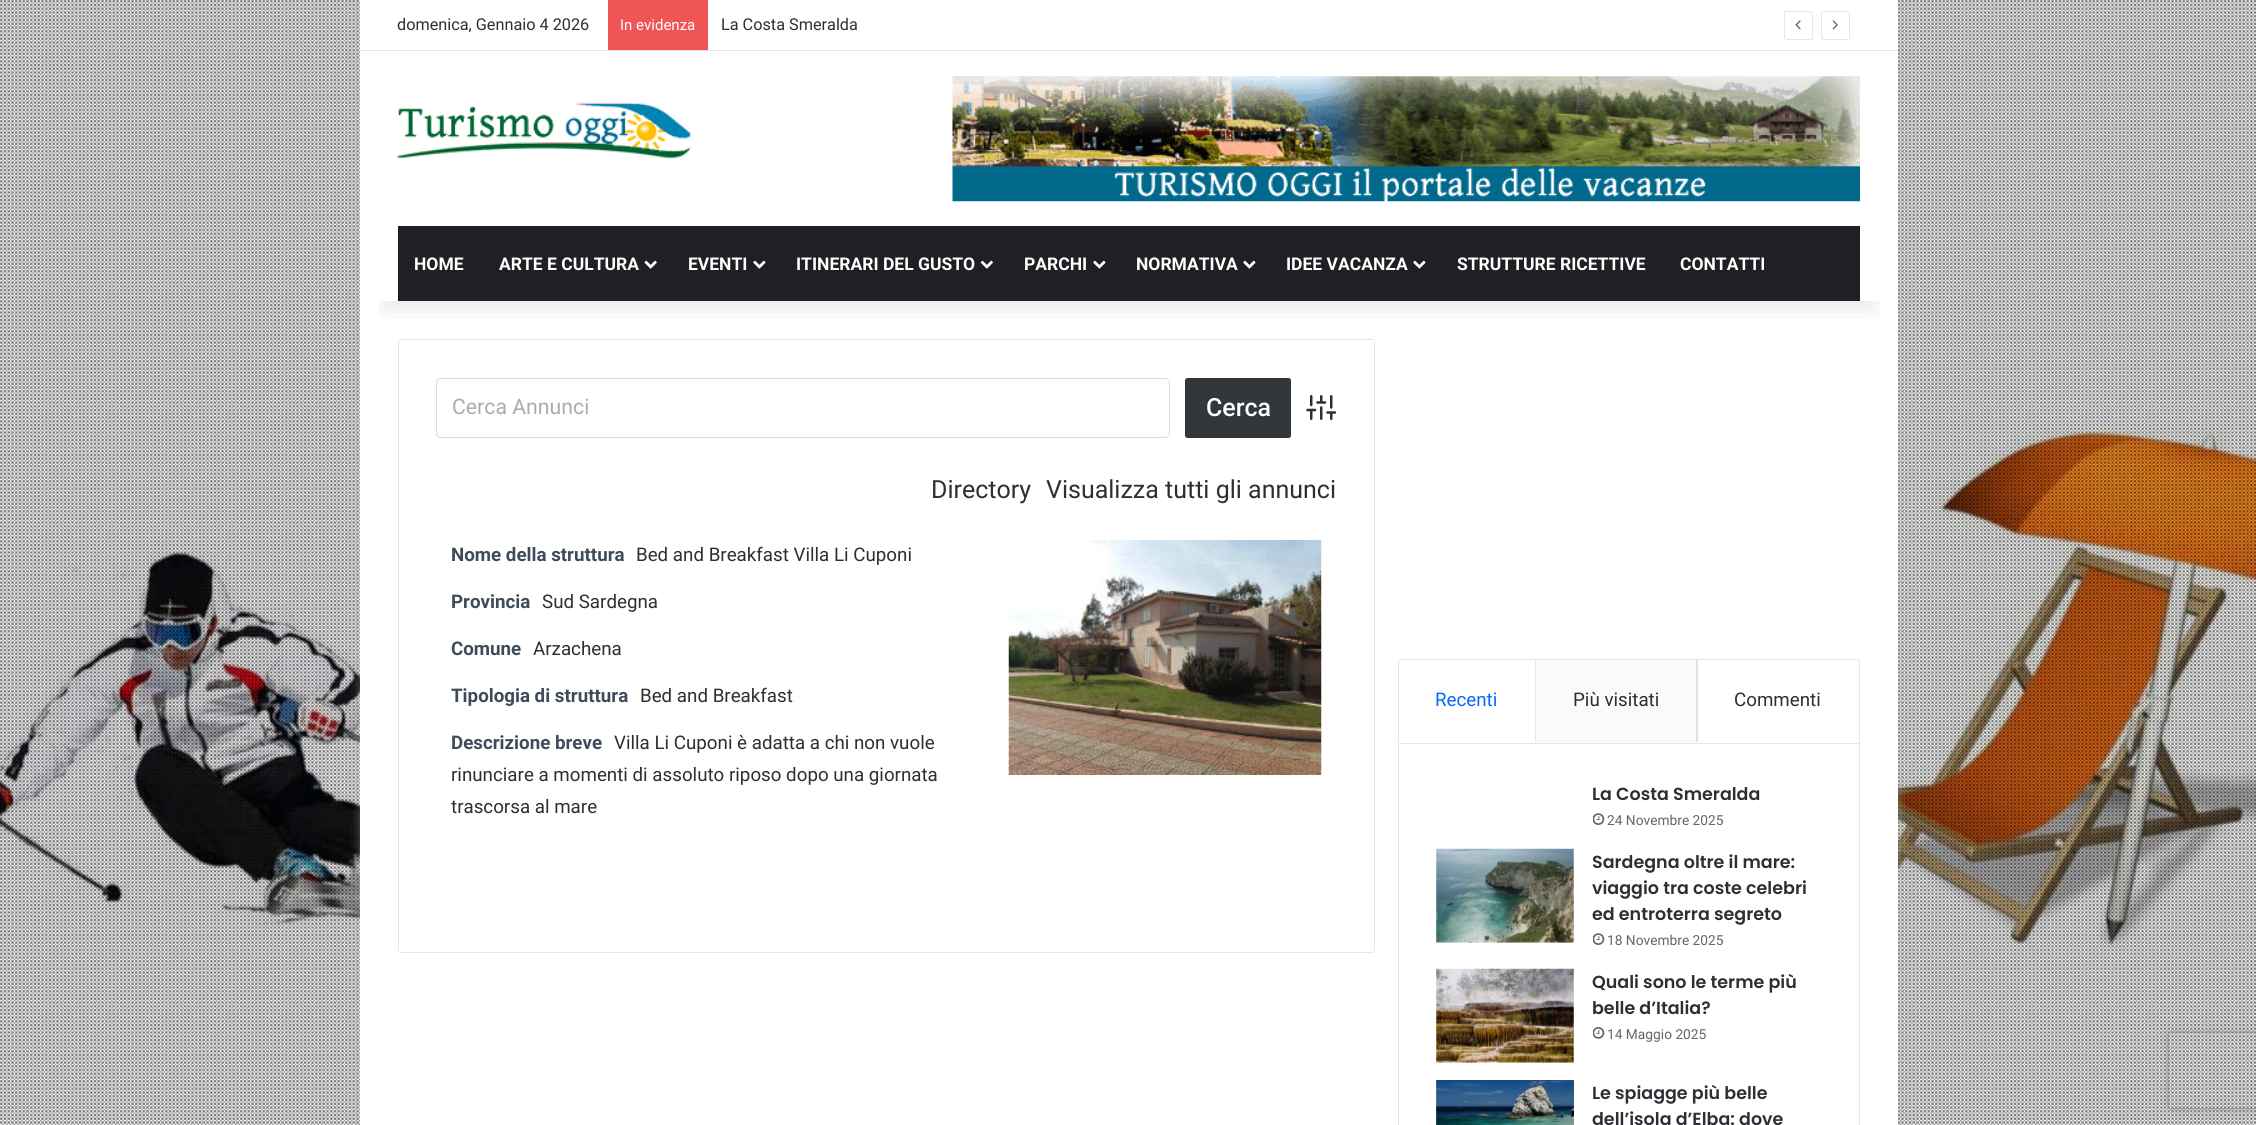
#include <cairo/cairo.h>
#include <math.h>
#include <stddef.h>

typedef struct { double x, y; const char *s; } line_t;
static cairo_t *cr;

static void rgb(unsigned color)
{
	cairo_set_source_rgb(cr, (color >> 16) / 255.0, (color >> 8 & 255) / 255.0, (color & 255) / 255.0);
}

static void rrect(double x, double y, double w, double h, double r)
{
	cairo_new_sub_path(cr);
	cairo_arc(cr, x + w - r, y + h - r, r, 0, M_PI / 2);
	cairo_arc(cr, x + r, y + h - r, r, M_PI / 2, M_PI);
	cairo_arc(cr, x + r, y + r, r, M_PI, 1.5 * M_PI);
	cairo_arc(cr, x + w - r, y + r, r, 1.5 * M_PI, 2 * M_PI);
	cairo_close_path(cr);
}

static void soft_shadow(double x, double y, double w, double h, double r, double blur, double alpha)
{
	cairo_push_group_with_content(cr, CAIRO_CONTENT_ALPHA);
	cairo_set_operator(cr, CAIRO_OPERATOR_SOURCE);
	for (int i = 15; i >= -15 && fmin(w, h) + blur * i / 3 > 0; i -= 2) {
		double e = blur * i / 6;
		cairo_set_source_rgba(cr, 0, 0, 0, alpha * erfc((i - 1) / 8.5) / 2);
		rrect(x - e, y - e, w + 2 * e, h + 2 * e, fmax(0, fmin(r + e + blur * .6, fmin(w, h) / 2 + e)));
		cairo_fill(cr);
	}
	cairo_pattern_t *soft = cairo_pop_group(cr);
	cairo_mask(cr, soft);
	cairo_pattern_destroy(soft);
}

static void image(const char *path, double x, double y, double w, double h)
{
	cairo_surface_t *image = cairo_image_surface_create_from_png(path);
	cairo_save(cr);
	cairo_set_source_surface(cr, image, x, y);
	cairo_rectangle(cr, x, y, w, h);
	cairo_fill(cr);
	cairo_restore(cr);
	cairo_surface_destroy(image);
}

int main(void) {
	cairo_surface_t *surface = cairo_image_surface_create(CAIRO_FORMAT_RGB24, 2256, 1125);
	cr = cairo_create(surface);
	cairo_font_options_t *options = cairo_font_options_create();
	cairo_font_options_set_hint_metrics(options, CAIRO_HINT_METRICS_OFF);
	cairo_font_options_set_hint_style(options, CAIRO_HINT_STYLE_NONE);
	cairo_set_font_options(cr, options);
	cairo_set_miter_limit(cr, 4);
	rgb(0xffffff);
	cairo_paint(cr);
	image("img/1.png", 0, 0, 2256, 1125);
	image("img/2.png", 0, 0, 2256, 1125);
	rgb(0xababab);
	soft_shadow(360, 1, 1538, 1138, 0, 4.5, 0.5);
	rgb(0xffffff);
	cairo_rectangle(cr, 360, 0, 1538, 1125);
	cairo_fill(cr);
	rrect(398.5, 339.5, 976, 613, 2);
	rgb(0xe6e6e6);
	cairo_set_line_width(cr, 1);
	cairo_stroke(cr);
	cairo_save(cr);
	cairo_rectangle(cr, 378, 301, 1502, 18);
	cairo_clip(cr);
	rgb(0x000000);
	soft_shadow(385, 56, 1488, 252, 0, 12.5, 0.1);
	cairo_restore(cr);
	rgb(0xe5e5e5);
	cairo_rectangle(cr, 360, 50, 1538, 1);
	cairo_fill(cr);
	rgb(0xf05555);
	cairo_rectangle(cr, 608, 0, 100, 50);
	cairo_fill(cr);
	rrect(1784.5, 11.5, 28, 28, 2);
	rgb(0xe6e6e6);
	cairo_stroke(cr);
	image("img/3.png", 1795, 20, 6, 10);
	rrect(1821.5, 11.5, 28, 28, 2);
	cairo_stroke(cr);
	image("img/4.png", 1832, 20, 6, 10);
	image("img/5.png", 397, 102, 294, 57);
	image("img/6.png", 952, 76, 908, 126);
	rgb(0x1f2024);
	cairo_rectangle(cr, 398, 226, 1462, 75);
	cairo_fill(cr);
	image("img/7.png", 644, 260, 13, 9);
	image("img/8.png", 753, 260, 13, 9);
	image("img/9.png", 980, 260, 13, 9);
	image("img/8.png", 1093, 260, 13, 9);
	image("img/8.png", 1243, 260, 13, 9);
	image("img/8.png", 1413, 260, 13, 9);
	rrect(436.5, 378.5, 733, 59, 4.5);
	rgb(0xd9dbde);
	cairo_stroke(cr);
	rgb(0x32373c);
	rrect(1185.5, 378.5, 105, 59, 2);
	cairo_fill_preserve(cr);
	cairo_stroke(cr);
	image("img/10.png", 1306, 395, 30, 25);
	image("img/11.png", 1008, 540, 314, 235);
	rrect(1398.5, 659.5, 461, 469, 2);
	rgb(0xe6e6e6);
	cairo_stroke(cr);
	cairo_rectangle(cr, 1399, 743, 460, 1);
	cairo_fill(cr);
	cairo_new_path(cr);
	cairo_move_to(cr, 1536, 660);
	cairo_line_to(cr, 1536, 742);
	cairo_line_to(cr, 1535, 741);
	cairo_line_to(cr, 1535, 660);
	cairo_close_path(cr);
	cairo_fill(cr);
	rgb(0xfafafa);
	cairo_rectangle(cr, 1536, 660, 162, 83);
	cairo_fill(cr);
	rgb(0xe1e1e1);
	cairo_new_path(cr);
	cairo_move_to(cr, 1698, 660);
	cairo_line_to(cr, 1698, 742);
	cairo_line_to(cr, 1696, 741);
	cairo_line_to(cr, 1696, 660);
	cairo_close_path(cr);
	cairo_fill(cr);
	image("img/12.png", 1593, 813, 12, 12);
	image("img/13.png", 1436, 848, 138, 95);
	image("img/12.png", 1593, 933, 12, 12);
	image("img/14.png", 1436, 968, 138, 95);
	image("img/15.png", 1593, 1027, 12, 12);
	image("img/16.png", 1436, 1080, 138, 45);
	cairo_save(cr);
	cairo_set_fill_rule(cr, CAIRO_FILL_RULE_EVEN_ODD);
	cairo_new_path(cr);
	cairo_move_to(cr, 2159, 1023);
	cairo_line_to(cr, 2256, 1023);
	cairo_line_to(cr, 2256, 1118);
	cairo_line_to(cr, 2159, 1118);
	cairo_close_path(cr);
	cairo_move_to(cr, 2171.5, 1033);
	cairo_line_to(cr, 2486.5, 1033);
	cairo_curve_to(cr, 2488, 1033, 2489, 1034, 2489, 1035.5);
	cairo_line_to(cr, 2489, 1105.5);
	cairo_curve_to(cr, 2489, 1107, 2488, 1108, 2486.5, 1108);
	cairo_line_to(cr, 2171.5, 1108);
	cairo_curve_to(cr, 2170, 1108, 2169, 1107, 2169, 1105.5);
	cairo_line_to(cr, 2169, 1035.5);
	cairo_curve_to(cr, 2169, 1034, 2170, 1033, 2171.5, 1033);
	cairo_close_path(cr);
	cairo_clip(cr);
	rgb(0x808080);
	soft_shadow(2169, 1033, 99, 75, 2.5, 3, 1);
	cairo_restore(cr);
	cairo_select_font_face(cr, "Roboto", CAIRO_FONT_SLANT_NORMAL, CAIRO_FONT_WEIGHT_NORMAL);
	cairo_set_font_size(cr, 16.25);
	rgb(0x2c2f34);
	cairo_move_to(cr, 397, 30);
	cairo_show_text(cr, "domenica, Gennaio 4 2026");
	cairo_set_font_size(cr, 15);
	rgb(0xffffff);
	cairo_move_to(cr, 620, 30);
	cairo_show_text(cr, "In evidenza");
	cairo_set_font_size(cr, 16.25);
	rgb(0x2c2f34);
	cairo_move_to(cr, 721, 30);
	cairo_show_text(cr, "La Costa Smeralda");
	cairo_select_font_face(cr, "Roboto", CAIRO_FONT_SLANT_NORMAL, CAIRO_FONT_WEIGHT_BOLD);
	cairo_set_font_size(cr, 17.5);
	rgb(0xffffff);
	{
		static const line_t items[] = {
			{414, 270, "HOME"},
			{499, 270, "ARTE E CULTURA"},
			{688, 270, "EVENTI"},
			{796, 270, "ITINERARI DEL GUSTO"},
			{1024, 270, "PARCHI"},
			{1136, 270, "NORMATIVA"},
			{1286, 270, "IDEE VACANZA"},
			{1457, 270, "STRUTTURE RICETTIVE"},
			{1680, 270, "CONTATTI"},
		};
		for (size_t i = 0; i < sizeof items / sizeof *items; i++) {
			cairo_move_to(cr, items[i].x, items[i].y);
			cairo_show_text(cr, items[i].s);
		}
	}
	cairo_select_font_face(cr, "Roboto", CAIRO_FONT_SLANT_NORMAL, CAIRO_FONT_WEIGHT_NORMAL);
	cairo_set_font_size(cr, 21.25);
	rgb(0xacacac);
	cairo_move_to(cr, 452, 414);
	cairo_show_text(cr, "Cerca Annunci");
	cairo_select_font_face(cr, "Roboto Medium", CAIRO_FONT_SLANT_NORMAL, CAIRO_FONT_WEIGHT_NORMAL);
	cairo_set_font_size(cr, 25);
	rgb(0xffffff);
	cairo_move_to(cr, 1206, 416);
	cairo_show_text(cr, "Cerca");
	cairo_select_font_face(cr, "Roboto", CAIRO_FONT_SLANT_NORMAL, CAIRO_FONT_WEIGHT_NORMAL);
	rgb(0x2c2f34);
	cairo_move_to(cr, 931, 498);
	cairo_show_text(cr, "Directory");
	cairo_move_to(cr, 1046, 498);
	cairo_show_text(cr, "Visualizza tutti gli annunci");
	cairo_select_font_face(cr, "Roboto", CAIRO_FONT_SLANT_NORMAL, CAIRO_FONT_WEIGHT_BOLD);
	cairo_set_font_size(cr, 18.75);
	rgb(0x3f4b5b);
	cairo_move_to(cr, 451, 561);
	cairo_show_text(cr, "Nome della struttura");
	cairo_select_font_face(cr, "Roboto", CAIRO_FONT_SLANT_NORMAL, CAIRO_FONT_WEIGHT_NORMAL);
	rgb(0x2c2f34);
	cairo_move_to(cr, 636, 561);
	cairo_show_text(cr, "Bed and Breakfast Villa Li Cuponi");
	cairo_select_font_face(cr, "Roboto", CAIRO_FONT_SLANT_NORMAL, CAIRO_FONT_WEIGHT_BOLD);
	rgb(0x3f4b5b);
	cairo_move_to(cr, 451, 608);
	cairo_show_text(cr, "Provincia");
	cairo_select_font_face(cr, "Roboto", CAIRO_FONT_SLANT_NORMAL, CAIRO_FONT_WEIGHT_NORMAL);
	rgb(0x2c2f34);
	cairo_move_to(cr, 542, 608);
	cairo_show_text(cr, "Sud Sardegna");
	cairo_select_font_face(cr, "Roboto", CAIRO_FONT_SLANT_NORMAL, CAIRO_FONT_WEIGHT_BOLD);
	rgb(0x3f4b5b);
	cairo_move_to(cr, 451, 655);
	cairo_show_text(cr, "Comune");
	cairo_select_font_face(cr, "Roboto", CAIRO_FONT_SLANT_NORMAL, CAIRO_FONT_WEIGHT_NORMAL);
	rgb(0x2c2f34);
	cairo_move_to(cr, 533, 655);
	cairo_show_text(cr, "Arzachena");
	cairo_select_font_face(cr, "Roboto", CAIRO_FONT_SLANT_NORMAL, CAIRO_FONT_WEIGHT_BOLD);
	rgb(0x3f4b5b);
	cairo_move_to(cr, 451, 702);
	cairo_show_text(cr, "Tipologia di struttura");
	cairo_select_font_face(cr, "Roboto", CAIRO_FONT_SLANT_NORMAL, CAIRO_FONT_WEIGHT_NORMAL);
	rgb(0x2c2f34);
	cairo_move_to(cr, 640, 702);
	cairo_show_text(cr, "Bed and Breakfast");
	cairo_select_font_face(cr, "Roboto", CAIRO_FONT_SLANT_NORMAL, CAIRO_FONT_WEIGHT_BOLD);
	rgb(0x3f4b5b);
	cairo_move_to(cr, 451, 749);
	cairo_show_text(cr, "Descrizione breve");
	cairo_select_font_face(cr, "Roboto", CAIRO_FONT_SLANT_NORMAL, CAIRO_FONT_WEIGHT_NORMAL);
	rgb(0x2c2f34);
	{
		static const line_t items[] = {
			{614, 749, "Villa Li Cuponi è adatta a chi non vuole"},
			{451, 781, "rinunciare a momenti di assoluto riposo dopo una giornata"},
			{451, 813, "trascorsa al mare"},
		};
		for (size_t i = 0; i < sizeof items / sizeof *items; i++) {
			cairo_move_to(cr, items[i].x, items[i].y);
			cairo_show_text(cr, items[i].s);
		}
	}
	rgb(0x0669ff);
	cairo_move_to(cr, 1435, 706);
	cairo_show_text(cr, "Recenti");
	rgb(0x2c2f34);
	cairo_move_to(cr, 1573, 706);
	cairo_show_text(cr, "Più visitati");
	cairo_move_to(cr, 1734, 706);
	cairo_show_text(cr, "Commenti");
	cairo_select_font_face(cr, "Poppins SemiBold", CAIRO_FONT_SLANT_NORMAL, CAIRO_FONT_WEIGHT_NORMAL);
	cairo_set_font_size(cr, 17.5);
	cairo_move_to(cr, 1592, 800);
	cairo_show_text(cr, "La Costa Smeralda");
	cairo_select_font_face(cr, "Roboto", CAIRO_FONT_SLANT_NORMAL, CAIRO_FONT_WEIGHT_NORMAL);
	cairo_set_font_size(cr, 13.75);
	rgb(0x666666);
	cairo_move_to(cr, 1607, 825);
	cairo_show_text(cr, "24 Novembre 2025");
	cairo_select_font_face(cr, "Poppins SemiBold", CAIRO_FONT_SLANT_NORMAL, CAIRO_FONT_WEIGHT_NORMAL);
	cairo_set_font_size(cr, 17.5);
	rgb(0x2c2f34);
	{
		static const line_t items[] = {
			{1592, 868, "Sardegna oltre il mare:"},
			{1592, 894, "viaggio tra coste celebri"},
			{1592, 920, "ed entroterra segreto"},
		};
		for (size_t i = 0; i < sizeof items / sizeof *items; i++) {
			cairo_move_to(cr, items[i].x, items[i].y);
			cairo_show_text(cr, items[i].s);
		}
	}
	cairo_select_font_face(cr, "Roboto", CAIRO_FONT_SLANT_NORMAL, CAIRO_FONT_WEIGHT_NORMAL);
	cairo_set_font_size(cr, 13.75);
	rgb(0x666666);
	cairo_move_to(cr, 1607, 945);
	cairo_show_text(cr, "18 Novembre 2025");
	cairo_select_font_face(cr, "Poppins SemiBold", CAIRO_FONT_SLANT_NORMAL, CAIRO_FONT_WEIGHT_NORMAL);
	cairo_set_font_size(cr, 17.5);
	rgb(0x2c2f34);
	cairo_move_to(cr, 1592, 988);
	cairo_show_text(cr, "Quali sono le terme più");
	cairo_move_to(cr, 1592, 1014);
	cairo_show_text(cr, "belle d’Italia?");
	cairo_select_font_face(cr, "Roboto", CAIRO_FONT_SLANT_NORMAL, CAIRO_FONT_WEIGHT_NORMAL);
	cairo_set_font_size(cr, 13.75);
	rgb(0x666666);
	cairo_move_to(cr, 1607, 1039);
	cairo_show_text(cr, "14 Maggio 2025");
	cairo_select_font_face(cr, "Poppins SemiBold", CAIRO_FONT_SLANT_NORMAL, CAIRO_FONT_WEIGHT_NORMAL);
	cairo_set_font_size(cr, 17.5);
	rgb(0x2c2f34);
	cairo_move_to(cr, 1592, 1099);
	cairo_show_text(cr, "Le spiagge più belle");
	cairo_move_to(cr, 1592, 1125);
	cairo_show_text(cr, "dell’isola d’Elba: dove");
	cairo_surface_write_to_png(surface, "page.png");
	cairo_font_options_destroy(options);
	cairo_destroy(cr);
	cairo_surface_destroy(surface);
	return 0;
}
